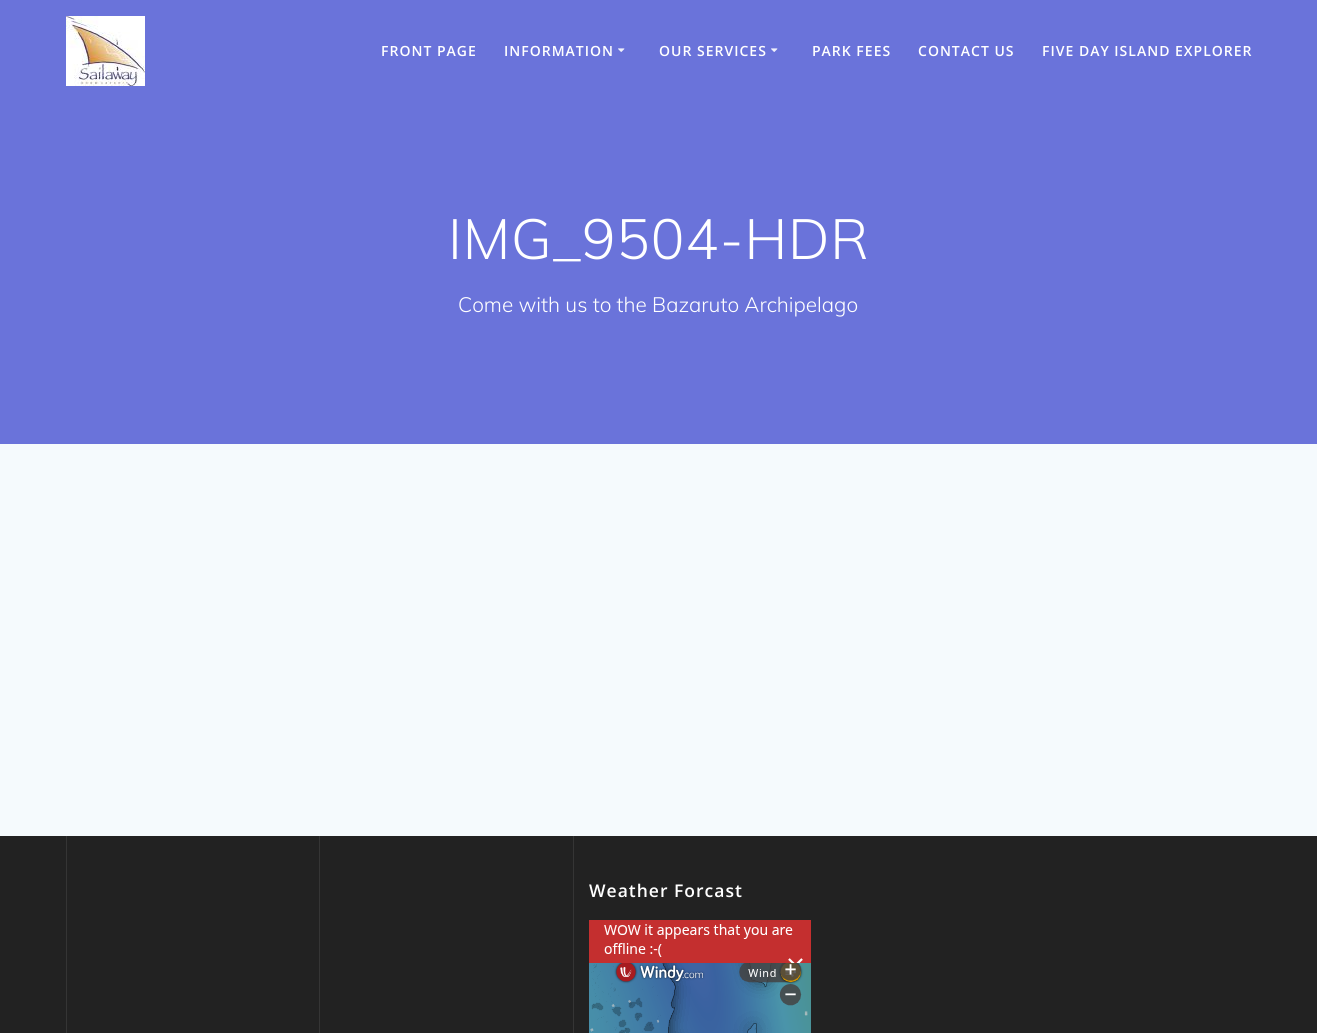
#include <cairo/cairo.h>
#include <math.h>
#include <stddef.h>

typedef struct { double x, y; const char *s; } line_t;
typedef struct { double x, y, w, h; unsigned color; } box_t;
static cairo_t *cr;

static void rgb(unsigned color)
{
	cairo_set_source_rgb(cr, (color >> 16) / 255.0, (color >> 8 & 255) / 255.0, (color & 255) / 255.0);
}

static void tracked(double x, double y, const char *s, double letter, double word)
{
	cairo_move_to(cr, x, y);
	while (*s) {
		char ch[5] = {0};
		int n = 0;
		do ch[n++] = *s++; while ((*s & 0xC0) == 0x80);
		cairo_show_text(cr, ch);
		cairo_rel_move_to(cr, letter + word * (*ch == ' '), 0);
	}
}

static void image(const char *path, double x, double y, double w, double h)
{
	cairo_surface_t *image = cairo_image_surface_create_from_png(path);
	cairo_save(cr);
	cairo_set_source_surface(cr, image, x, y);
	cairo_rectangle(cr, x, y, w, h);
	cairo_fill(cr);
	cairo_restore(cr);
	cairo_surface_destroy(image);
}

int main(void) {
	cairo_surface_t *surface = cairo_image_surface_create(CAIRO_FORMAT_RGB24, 1317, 1033);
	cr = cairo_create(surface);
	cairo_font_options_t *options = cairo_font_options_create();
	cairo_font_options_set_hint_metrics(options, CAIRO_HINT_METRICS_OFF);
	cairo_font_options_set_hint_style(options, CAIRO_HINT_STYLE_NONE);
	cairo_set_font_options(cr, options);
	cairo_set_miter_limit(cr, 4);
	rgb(0x6a73da);
	cairo_paint(cr);
	image("img/1.png", 66, 16, 79, 70);
	image("img/2.png", 618, 48, 7, 4);
	image("img/2.png", 771, 48, 7, 4);
	{
		static const box_t items[] = {
			{0, 444, 1317, 392, 0xf5fafd},
			{0, 836, 1317, 197, 0x222222},
			{66, 836, 1, 197, 0x353535},
			{319, 836, 1, 197, 0x353535},
			{573, 836, 1, 197, 0x353535},
		};
		for (size_t i = 0; i < sizeof items / sizeof *items; i++) {
			rgb(items[i].color);
			cairo_rectangle(cr, items[i].x, items[i].y, items[i].w, items[i].h);
			cairo_fill(cr);
		}
	}
	image("img/3.png", 589, 920, 222, 113);
	cairo_select_font_face(cr, "Open Sans SemiBold", CAIRO_FONT_SLANT_NORMAL, CAIRO_FONT_WEIGHT_NORMAL);
	cairo_set_font_size(cr, 14);
	rgb(0xffffff);
	{
		static const line_t items[] = {
			{381, 56, "FRONT PAGE"},
			{504, 56, "INFORMATION"},
			{659, 56, "OUR SERVICES"},
			{812, 56, "PARK FEES"},
			{918, 56, "CONTACT US"},
			{1042, 56, "FIVE DAY ISLAND EXPLORER"},
		};
		for (size_t i = 0; i < sizeof items / sizeof *items; i++) {
			tracked(items[i].x, items[i].y, items[i].s, 1, 0);
		}
	}
	cairo_select_font_face(cr, "Muli Light", CAIRO_FONT_SLANT_NORMAL, CAIRO_FONT_WEIGHT_NORMAL);
	cairo_set_font_size(cr, 56);
	tracked(448, 259, "IMG_9504-HDR", 0.9, 0);
	cairo_set_font_size(cr, 20.75);
	cairo_move_to(cr, 458, 312);
	cairo_show_text(cr, "Come with us to the Bazaruto Archipelago");
	cairo_select_font_face(cr, "Open Sans SemiBold", CAIRO_FONT_SLANT_NORMAL, CAIRO_FONT_WEIGHT_NORMAL);
	cairo_set_font_size(cr, 17.5);
	tracked(589, 897, "Weather Forcast", 1, 0);
	cairo_surface_write_to_png(surface, "page.png");
	cairo_font_options_destroy(options);
	cairo_destroy(cr);
	cairo_surface_destroy(surface);
	return 0;
}
